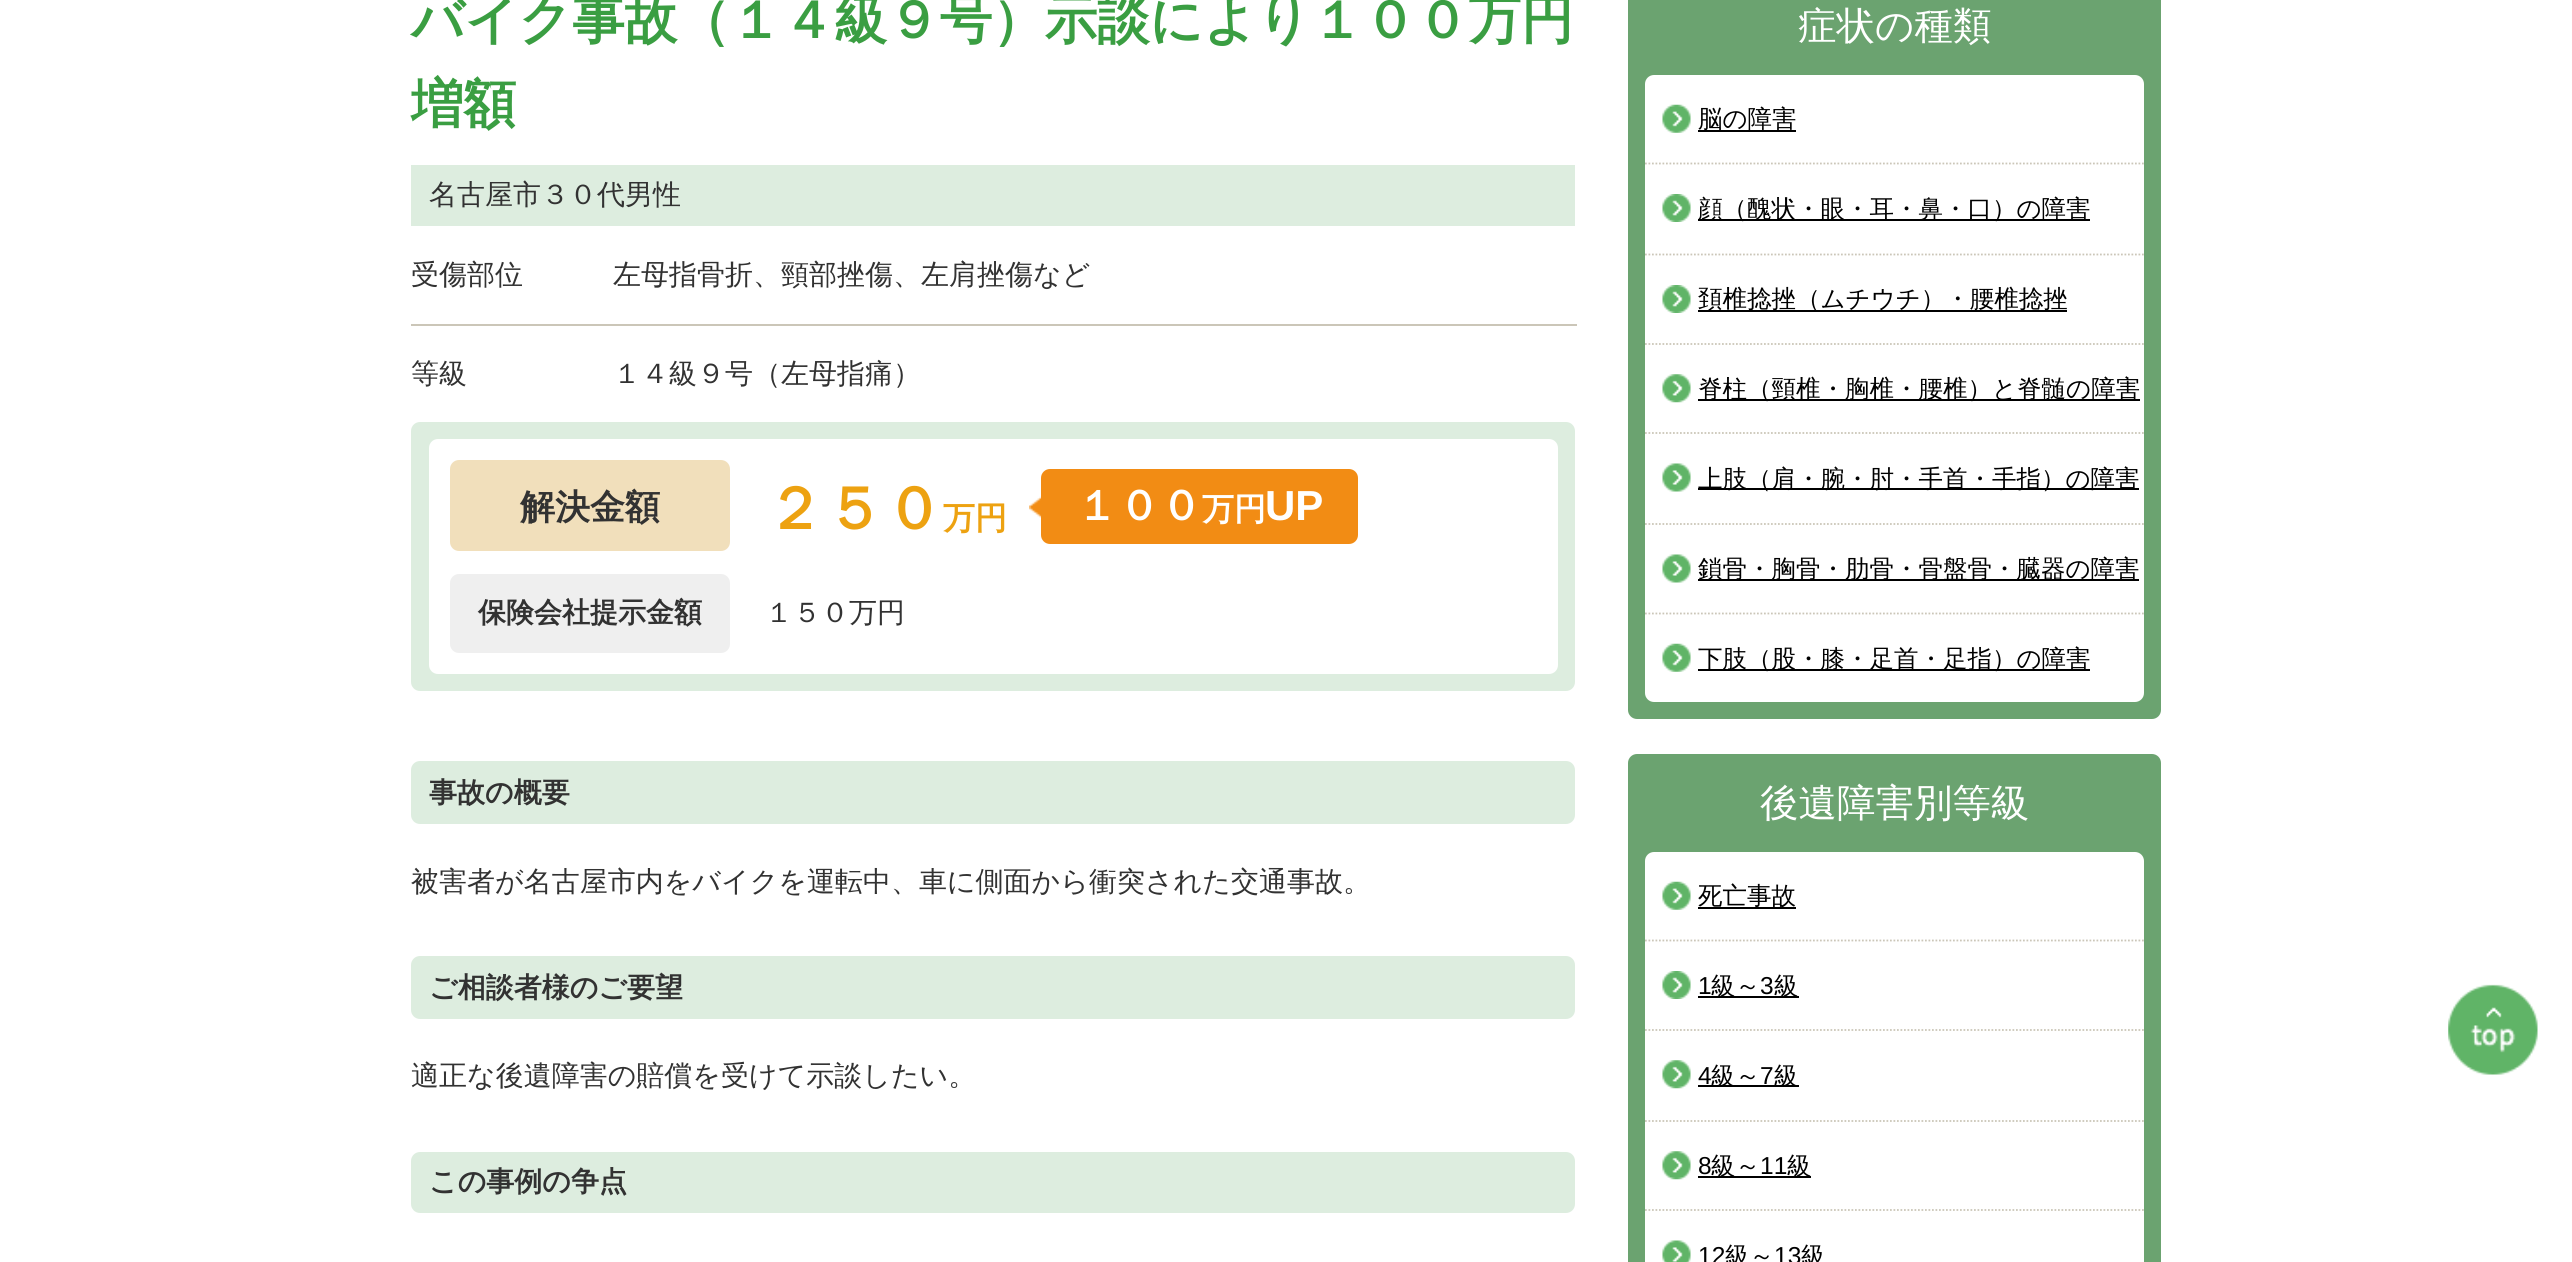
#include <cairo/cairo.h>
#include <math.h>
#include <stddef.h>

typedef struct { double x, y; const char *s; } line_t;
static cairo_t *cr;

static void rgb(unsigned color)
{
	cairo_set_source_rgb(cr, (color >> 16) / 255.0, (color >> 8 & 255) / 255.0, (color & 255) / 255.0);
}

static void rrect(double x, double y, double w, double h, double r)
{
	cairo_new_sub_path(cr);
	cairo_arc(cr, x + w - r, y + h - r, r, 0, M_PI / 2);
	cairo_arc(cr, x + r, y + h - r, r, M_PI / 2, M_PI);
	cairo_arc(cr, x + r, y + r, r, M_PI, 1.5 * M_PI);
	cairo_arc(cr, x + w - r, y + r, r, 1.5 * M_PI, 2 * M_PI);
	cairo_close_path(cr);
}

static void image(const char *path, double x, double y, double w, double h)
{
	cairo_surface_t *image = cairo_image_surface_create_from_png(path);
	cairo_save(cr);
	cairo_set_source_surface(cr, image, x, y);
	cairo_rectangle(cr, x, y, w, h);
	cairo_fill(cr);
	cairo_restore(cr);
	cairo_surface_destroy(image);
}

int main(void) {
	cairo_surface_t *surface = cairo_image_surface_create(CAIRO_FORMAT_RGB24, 2572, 1262);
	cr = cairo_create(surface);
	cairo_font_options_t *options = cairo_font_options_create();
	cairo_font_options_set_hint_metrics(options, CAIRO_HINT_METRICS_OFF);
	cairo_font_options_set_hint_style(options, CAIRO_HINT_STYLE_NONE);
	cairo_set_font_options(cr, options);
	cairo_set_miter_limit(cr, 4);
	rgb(0xffffff);
	cairo_paint(cr);
	rgb(0xddeddf);
	cairo_rectangle(cr, 411, 165, 1164, 61);
	cairo_fill(cr);
	rgb(0xcbc6b8);
	cairo_rectangle(cr, 411, 324, 1166, 2);
	cairo_fill(cr);
	rgb(0xddeddf);
	rrect(411, 422, 1164, 269, 9);
	cairo_fill(cr);
	rgb(0xffffff);
	rrect(429, 439, 1129, 235, 9);
	cairo_fill(cr);
	rgb(0xf1dfbb);
	rrect(450, 460, 280, 91, 9);
	cairo_fill(cr);
	rgb(0xf28c14);
	rrect(1041, 469, 317, 75, 9);
	cairo_fill(cr);
	image("img/1.png", 1029, 496, 12, 22);
	rgb(0xefefef);
	rrect(450, 574, 280, 79, 9);
	cairo_fill(cr);
	rgb(0xddeddf);
	rrect(411, 761, 1164, 63, 9);
	cairo_fill(cr);
	rrect(411, 956, 1164, 63, 9);
	cairo_fill(cr);
	rrect(411, 1152, 1164, 61, 9);
	cairo_fill(cr);
	rgb(0x6ba370);
	rrect(1628, -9, 533, 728, 9);
	cairo_fill(cr);
	rgb(0xffffff);
	rrect(1645, 75, 499, 627, 9);
	cairo_fill(cr);
	image("img/2.png", 1662, 104, 29, 29);
	rgb(0x000000);
	cairo_rectangle(cr, 1698, 130, 98, 2);
	cairo_fill(cr);
	cairo_new_path(cr);
	cairo_move_to(cr, 1645, 163.5);
	cairo_line_to(cr, 2144, 163.5);
	rgb(0xcbc6b8);
	cairo_set_line_width(cr, 1.8);
	cairo_set_dash(cr, (double[]){1.75, 1.75}, 2, 0);
	cairo_stroke(cr);
	image("img/3.png", 1662, 194, 29, 28);
	rgb(0x000000);
	cairo_rectangle(cr, 1698, 219, 392, 2);
	cairo_fill(cr);
	cairo_new_path(cr);
	cairo_move_to(cr, 1645, 254.5);
	cairo_line_to(cr, 2144, 254.5);
	rgb(0xcbc6b8);
	cairo_stroke(cr);
	image("img/3.png", 1662, 285, 29, 28);
	rgb(0x000000);
	cairo_rectangle(cr, 1698, 310, 369, 2);
	cairo_fill(cr);
	cairo_new_path(cr);
	cairo_move_to(cr, 1645, 344);
	cairo_line_to(cr, 2144, 344);
	rgb(0xcbc6b8);
	cairo_stroke(cr);
	image("img/4.png", 1662, 374, 29, 29);
	rgb(0x000000);
	cairo_rectangle(cr, 1698, 399, 442, 2);
	cairo_fill(cr);
	cairo_new_path(cr);
	cairo_move_to(cr, 1645, 433);
	cairo_line_to(cr, 2144, 433);
	rgb(0xcbc6b8);
	cairo_stroke(cr);
	image("img/5.png", 1662, 463, 29, 29);
	rgb(0x000000);
	cairo_rectangle(cr, 1698, 488, 441, 2);
	cairo_fill(cr);
	cairo_new_path(cr);
	cairo_move_to(cr, 1645, 524);
	cairo_line_to(cr, 2144, 524);
	rgb(0xcbc6b8);
	cairo_stroke(cr);
	image("img/5.png", 1662, 554, 29, 29);
	rgb(0x000000);
	cairo_rectangle(cr, 1698, 579, 441, 2);
	cairo_fill(cr);
	cairo_new_path(cr);
	cairo_move_to(cr, 1645, 613.5);
	cairo_line_to(cr, 2144, 613.5);
	rgb(0xcbc6b8);
	cairo_stroke(cr);
	image("img/2.png", 1662, 643, 29, 29);
	rgb(0x000000);
	cairo_rectangle(cr, 1698, 669, 392, 2);
	cairo_fill(cr);
	rgb(0x6ba370);
	rrect(1628, 754, 533, 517, 9);
	cairo_fill(cr);
	rgb(0xffffff);
	rrect(1645, 852, 499, 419, 9);
	cairo_fill(cr);
	image("img/2.png", 1662, 881, 29, 29);
	rgb(0x000000);
	cairo_rectangle(cr, 1698, 907, 98, 2);
	cairo_fill(cr);
	cairo_new_path(cr);
	cairo_move_to(cr, 1645, 940.5);
	cairo_line_to(cr, 2144, 940.5);
	rgb(0xcbc6b8);
	cairo_stroke(cr);
	image("img/3.png", 1662, 971, 29, 28);
	rgb(0x000000);
	cairo_rectangle(cr, 1698, 996, 101, 2);
	cairo_fill(cr);
	cairo_new_path(cr);
	cairo_move_to(cr, 1645, 1030);
	cairo_line_to(cr, 2144, 1030);
	rgb(0xcbc6b8);
	cairo_stroke(cr);
	image("img/4.png", 1662, 1060, 29, 29);
	rgb(0x000000);
	cairo_rectangle(cr, 1698, 1085, 101, 2);
	cairo_fill(cr);
	cairo_new_path(cr);
	cairo_move_to(cr, 1645, 1121);
	cairo_line_to(cr, 2144, 1121);
	rgb(0xcbc6b8);
	cairo_stroke(cr);
	image("img/4.png", 1662, 1151, 29, 29);
	rgb(0x000000);
	cairo_rectangle(cr, 1698, 1176, 113, 2);
	cairo_fill(cr);
	cairo_new_path(cr);
	cairo_move_to(cr, 1645, 1210);
	cairo_line_to(cr, 2144, 1210);
	rgb(0xcbc6b8);
	cairo_stroke(cr);
	image("img/6.png", 1662, 1240, 29, 22);
	image("img/7.png", 2448, 984, 90, 91);
	cairo_select_font_face(cr, "WenQuanYi Zen Hei", CAIRO_FONT_SLANT_NORMAL, CAIRO_FONT_WEIGHT_BOLD);
	cairo_set_font_size(cr, 52.5);
	rgb(0x3a9e42);
	cairo_move_to(cr, 411, 38);
	cairo_show_text(cr, "バイク事故（１４級９号）示談により１００万円");
	cairo_move_to(cr, 411, 122);
	cairo_show_text(cr, "増額");
	cairo_select_font_face(cr, "WenQuanYi Zen Hei Medium", CAIRO_FONT_SLANT_NORMAL, CAIRO_FONT_WEIGHT_NORMAL);
	cairo_set_font_size(cr, 28);
	rgb(0x323232);
	{
		static const line_t items[] = {
			{429, 204, "名古屋市３０代男性"},
			{411, 284, "受傷部位"},
			{613, 284, "左母指骨折、頸部挫傷、左肩挫傷など"},
			{411, 383, "等級"},
			{613, 383, "１４級９号（左母指痛）"},
		};
		for (size_t i = 0; i < sizeof items / sizeof *items; i++) {
			cairo_move_to(cr, items[i].x, items[i].y);
			cairo_show_text(cr, items[i].s);
		}
	}
	cairo_select_font_face(cr, "WenQuanYi Zen Hei", CAIRO_FONT_SLANT_NORMAL, CAIRO_FONT_WEIGHT_BOLD);
	cairo_set_font_size(cr, 35);
	cairo_move_to(cr, 520, 519);
	cairo_show_text(cr, "解決金額");
	cairo_set_font_size(cr, 59.5);
	rgb(0xeda211);
	cairo_move_to(cr, 765, 529);
	cairo_show_text(cr, "２５０");
	cairo_set_font_size(cr, 32);
	cairo_move_to(cr, 943, 529);
	cairo_show_text(cr, "万円");
	cairo_set_font_size(cr, 42);
	rgb(0xffffff);
	cairo_move_to(cr, 1076, 520);
	cairo_show_text(cr, "１００");
	cairo_set_font_size(cr, 32);
	cairo_move_to(cr, 1202, 520);
	cairo_show_text(cr, "万円");
	cairo_select_font_face(cr, "Liberation Sans", CAIRO_FONT_SLANT_NORMAL, CAIRO_FONT_WEIGHT_BOLD);
	cairo_set_font_size(cr, 42);
	cairo_move_to(cr, 1265, 520);
	cairo_show_text(cr, "UP");
	cairo_select_font_face(cr, "WenQuanYi Zen Hei", CAIRO_FONT_SLANT_NORMAL, CAIRO_FONT_WEIGHT_BOLD);
	cairo_set_font_size(cr, 28);
	rgb(0x323232);
	cairo_move_to(cr, 478, 622);
	cairo_show_text(cr, "保険会社提示金額");
	cairo_select_font_face(cr, "WenQuanYi Zen Hei Medium", CAIRO_FONT_SLANT_NORMAL, CAIRO_FONT_WEIGHT_NORMAL);
	cairo_move_to(cr, 765, 622);
	cairo_show_text(cr, "１５０万円");
	cairo_select_font_face(cr, "WenQuanYi Zen Hei", CAIRO_FONT_SLANT_NORMAL, CAIRO_FONT_WEIGHT_BOLD);
	cairo_move_to(cr, 429, 802);
	cairo_show_text(cr, "事故の概要");
	cairo_select_font_face(cr, "WenQuanYi Zen Hei Medium", CAIRO_FONT_SLANT_NORMAL, CAIRO_FONT_WEIGHT_NORMAL);
	cairo_move_to(cr, 411, 891);
	cairo_show_text(cr, "被害者が名古屋市内をバイクを運転中、車に側面から衝突された交通事故。");
	cairo_select_font_face(cr, "WenQuanYi Zen Hei", CAIRO_FONT_SLANT_NORMAL, CAIRO_FONT_WEIGHT_BOLD);
	cairo_move_to(cr, 429, 997);
	cairo_show_text(cr, "ご相談者様のご要望");
	cairo_select_font_face(cr, "WenQuanYi Zen Hei Medium", CAIRO_FONT_SLANT_NORMAL, CAIRO_FONT_WEIGHT_NORMAL);
	cairo_move_to(cr, 411, 1085);
	cairo_show_text(cr, "適正な後遺障害の賠償を受けて示談したい。");
	cairo_select_font_face(cr, "WenQuanYi Zen Hei", CAIRO_FONT_SLANT_NORMAL, CAIRO_FONT_WEIGHT_BOLD);
	cairo_move_to(cr, 429, 1191);
	cairo_show_text(cr, "この事例の争点");
	cairo_select_font_face(cr, "WenQuanYi Zen Hei Medium", CAIRO_FONT_SLANT_NORMAL, CAIRO_FONT_WEIGHT_NORMAL);
	cairo_set_font_size(cr, 38.5);
	rgb(0xffffff);
	cairo_move_to(cr, 1798, 39);
	cairo_show_text(cr, "症状の種類");
	cairo_set_font_size(cr, 24.5);
	rgb(0x000000);
	{
		static const line_t items[] = {
			{1698, 127, "脳の障害"},
			{1698, 217, "顔（醜状・眼・耳・鼻・口）の障害"},
			{1698, 307, "頚椎捻挫（ムチウチ）・腰椎捻挫"},
			{1698, 397, "脊柱（頸椎・胸椎・腰椎）と脊髄の障害"},
			{1698, 487, "上肢（肩・腕・肘・手首・手指）の障害"},
			{1698, 577, "鎖骨・胸骨・肋骨・骨盤骨・臓器の障害"},
			{1698, 667, "下肢（股・膝・足首・足指）の障害"},
		};
		for (size_t i = 0; i < sizeof items / sizeof *items; i++) {
			cairo_move_to(cr, items[i].x, items[i].y);
			cairo_show_text(cr, items[i].s);
		}
	}
	cairo_set_font_size(cr, 38.5);
	rgb(0xffffff);
	cairo_move_to(cr, 1760, 816);
	cairo_show_text(cr, "後遺障害別等級");
	cairo_set_font_size(cr, 24.5);
	rgb(0x000000);
	cairo_move_to(cr, 1698, 904);
	cairo_show_text(cr, "死亡事故");
	cairo_select_font_face(cr, "Liberation Sans", CAIRO_FONT_SLANT_NORMAL, CAIRO_FONT_WEIGHT_NORMAL);
	cairo_move_to(cr, 1698, 994);
	cairo_show_text(cr, "1");
	cairo_select_font_face(cr, "WenQuanYi Zen Hei Medium", CAIRO_FONT_SLANT_NORMAL, CAIRO_FONT_WEIGHT_NORMAL);
	cairo_move_to(cr, 1711, 994);
	cairo_show_text(cr, "級～");
	cairo_select_font_face(cr, "Liberation Sans", CAIRO_FONT_SLANT_NORMAL, CAIRO_FONT_WEIGHT_NORMAL);
	cairo_move_to(cr, 1760, 994);
	cairo_show_text(cr, "3");
	cairo_select_font_face(cr, "WenQuanYi Zen Hei Medium", CAIRO_FONT_SLANT_NORMAL, CAIRO_FONT_WEIGHT_NORMAL);
	cairo_move_to(cr, 1774, 994);
	cairo_show_text(cr, "級");
	cairo_select_font_face(cr, "Liberation Sans", CAIRO_FONT_SLANT_NORMAL, CAIRO_FONT_WEIGHT_NORMAL);
	cairo_move_to(cr, 1698, 1084);
	cairo_show_text(cr, "4");
	cairo_select_font_face(cr, "WenQuanYi Zen Hei Medium", CAIRO_FONT_SLANT_NORMAL, CAIRO_FONT_WEIGHT_NORMAL);
	cairo_move_to(cr, 1711, 1084);
	cairo_show_text(cr, "級～");
	cairo_select_font_face(cr, "Liberation Sans", CAIRO_FONT_SLANT_NORMAL, CAIRO_FONT_WEIGHT_NORMAL);
	cairo_move_to(cr, 1760, 1084);
	cairo_show_text(cr, "7");
	cairo_select_font_face(cr, "WenQuanYi Zen Hei Medium", CAIRO_FONT_SLANT_NORMAL, CAIRO_FONT_WEIGHT_NORMAL);
	cairo_move_to(cr, 1774, 1084);
	cairo_show_text(cr, "級");
	cairo_select_font_face(cr, "Liberation Sans", CAIRO_FONT_SLANT_NORMAL, CAIRO_FONT_WEIGHT_NORMAL);
	cairo_move_to(cr, 1698, 1174);
	cairo_show_text(cr, "8");
	cairo_select_font_face(cr, "WenQuanYi Zen Hei Medium", CAIRO_FONT_SLANT_NORMAL, CAIRO_FONT_WEIGHT_NORMAL);
	cairo_move_to(cr, 1711, 1174);
	cairo_show_text(cr, "級～");
	cairo_select_font_face(cr, "Liberation Sans", CAIRO_FONT_SLANT_NORMAL, CAIRO_FONT_WEIGHT_NORMAL);
	cairo_move_to(cr, 1760, 1174);
	cairo_show_text(cr, "11");
	cairo_select_font_face(cr, "WenQuanYi Zen Hei Medium", CAIRO_FONT_SLANT_NORMAL, CAIRO_FONT_WEIGHT_NORMAL);
	cairo_move_to(cr, 1787, 1174);
	cairo_show_text(cr, "級");
	cairo_select_font_face(cr, "Liberation Sans", CAIRO_FONT_SLANT_NORMAL, CAIRO_FONT_WEIGHT_NORMAL);
	cairo_move_to(cr, 1698, 1264);
	cairo_show_text(cr, "12");
	cairo_select_font_face(cr, "WenQuanYi Zen Hei Medium", CAIRO_FONT_SLANT_NORMAL, CAIRO_FONT_WEIGHT_NORMAL);
	cairo_move_to(cr, 1725, 1264);
	cairo_show_text(cr, "級～");
	cairo_select_font_face(cr, "Liberation Sans", CAIRO_FONT_SLANT_NORMAL, CAIRO_FONT_WEIGHT_NORMAL);
	cairo_move_to(cr, 1774, 1264);
	cairo_show_text(cr, "13");
	cairo_select_font_face(cr, "WenQuanYi Zen Hei Medium", CAIRO_FONT_SLANT_NORMAL, CAIRO_FONT_WEIGHT_NORMAL);
	cairo_move_to(cr, 1801, 1264);
	cairo_show_text(cr, "級");
	cairo_surface_write_to_png(surface, "page.png");
	cairo_font_options_destroy(options);
	cairo_destroy(cr);
	cairo_surface_destroy(surface);
	return 0;
}
